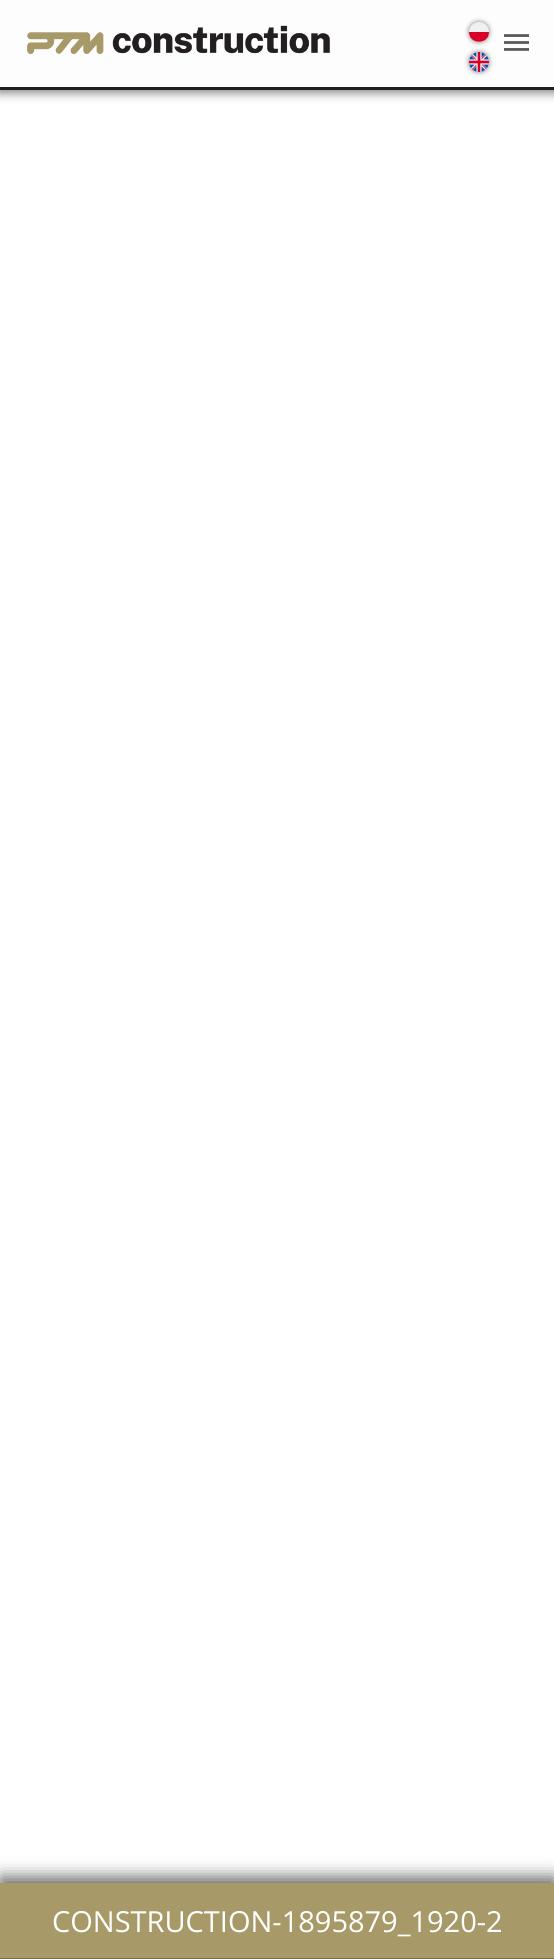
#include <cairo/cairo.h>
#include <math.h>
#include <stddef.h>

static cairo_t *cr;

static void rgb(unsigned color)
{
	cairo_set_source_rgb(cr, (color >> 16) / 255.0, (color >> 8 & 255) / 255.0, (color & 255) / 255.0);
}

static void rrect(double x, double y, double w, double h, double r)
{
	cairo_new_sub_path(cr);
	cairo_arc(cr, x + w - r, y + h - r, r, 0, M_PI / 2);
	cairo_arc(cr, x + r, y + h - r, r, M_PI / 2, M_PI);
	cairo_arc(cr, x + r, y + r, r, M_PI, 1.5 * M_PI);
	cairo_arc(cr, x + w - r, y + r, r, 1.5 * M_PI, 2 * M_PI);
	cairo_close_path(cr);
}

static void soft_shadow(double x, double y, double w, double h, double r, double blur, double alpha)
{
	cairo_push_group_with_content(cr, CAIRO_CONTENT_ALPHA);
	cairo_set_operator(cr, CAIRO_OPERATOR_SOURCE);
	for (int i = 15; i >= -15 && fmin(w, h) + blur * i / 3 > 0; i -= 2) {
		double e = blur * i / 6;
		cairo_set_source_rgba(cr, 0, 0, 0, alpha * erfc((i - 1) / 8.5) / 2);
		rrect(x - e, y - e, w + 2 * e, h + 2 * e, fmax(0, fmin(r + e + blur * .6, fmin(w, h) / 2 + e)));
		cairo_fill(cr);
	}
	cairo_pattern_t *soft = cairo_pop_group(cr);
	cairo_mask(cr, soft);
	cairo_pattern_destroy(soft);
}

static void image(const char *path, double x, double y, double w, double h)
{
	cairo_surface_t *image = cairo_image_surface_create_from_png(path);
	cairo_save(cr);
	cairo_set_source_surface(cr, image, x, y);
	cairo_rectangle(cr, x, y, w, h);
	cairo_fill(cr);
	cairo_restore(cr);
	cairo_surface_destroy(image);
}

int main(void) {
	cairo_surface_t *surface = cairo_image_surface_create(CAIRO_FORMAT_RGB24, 554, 1959);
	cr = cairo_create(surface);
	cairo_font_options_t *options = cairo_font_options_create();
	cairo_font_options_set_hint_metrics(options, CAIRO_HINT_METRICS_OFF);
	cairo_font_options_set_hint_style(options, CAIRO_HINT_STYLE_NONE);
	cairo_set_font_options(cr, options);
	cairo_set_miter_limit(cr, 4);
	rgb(0xffffff);
	cairo_paint(cr);
	rgb(0x040403);
	soft_shadow(-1, -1, 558, 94, 0, 5, 0.49);
	rgb(0xfdfdfd);
	cairo_rectangle(cr, 0, 0, 554, 87);
	cairo_fill(cr);
	rgb(0x1f1f1f);
	cairo_rectangle(cr, 0, 87, 554, 3);
	cairo_fill(cr);
	image("img/1.png", 27, 25, 303, 29);
	rgb(0x808080);
	soft_shadow(469, 22, 20, 20, 10, 2.5, 1);
	rgb(0xf0f0f0);
	cairo_arc(cr, 479, 32, 10, 0, 2 * M_PI);
	cairo_fill(cr);
	rgb(0xd80027);
	cairo_new_path(cr);
	cairo_move_to(cr, 489, 32);
	cairo_curve_to(cr, 489, 45, 469, 45, 469, 32);
	cairo_fill(cr);
	rgb(0x808080);
	soft_shadow(469, 52, 20, 20, 10, 2.5, 1);
	image("img/2.png", 469, 52, 20, 20);
	image("img/3.png", 504, 34, 25, 17);
	rgb(0x000000);
	soft_shadow(1, 1877, 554, 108, 0, 8.5, 0.58);
	rgb(0x60625e);
	soft_shadow(-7, 1892, 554, 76, 0, 11.5, 0.45);
	rgb(0xa89968);
	cairo_rectangle(cr, 0, 1883, 554, 75);
	cairo_fill(cr);
	rgb(0x7c7047);
	cairo_rectangle(cr, 0, 1958, 554, 1);
	cairo_fill(cr);
	cairo_select_font_face(cr, "Open Sans", CAIRO_FONT_SLANT_NORMAL, CAIRO_FONT_WEIGHT_NORMAL);
	cairo_set_font_size(cr, 29);
	rgb(0xffffff);
	cairo_move_to(cr, 52, 1932);
	cairo_show_text(cr, "CONSTRUCTION-1895879_1920-2");
	cairo_surface_write_to_png(surface, "page.png");
	cairo_font_options_destroy(options);
	cairo_destroy(cr);
	cairo_surface_destroy(surface);
	return 0;
}
